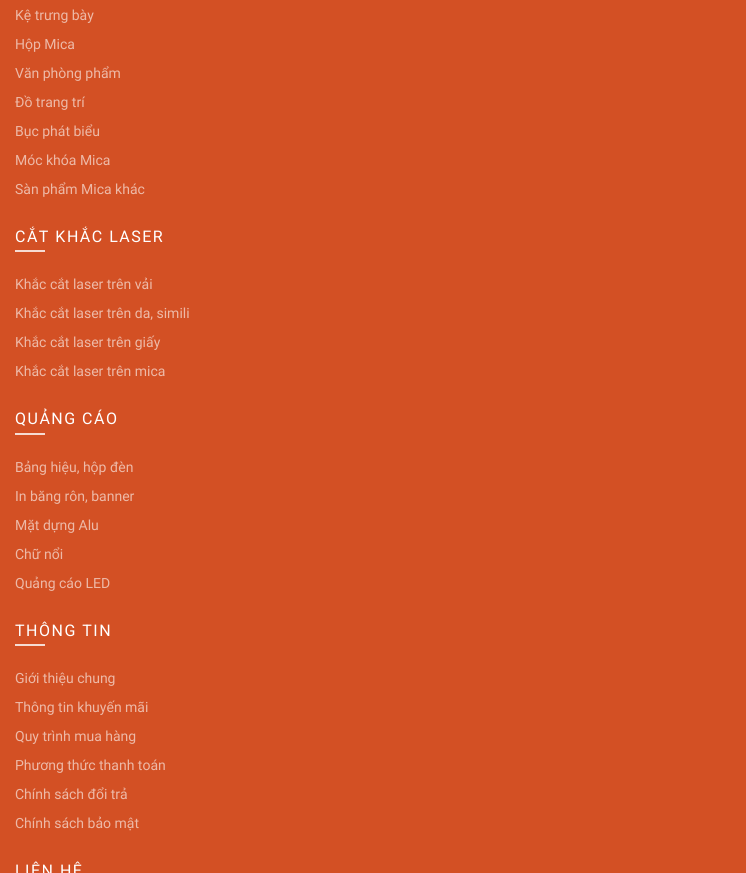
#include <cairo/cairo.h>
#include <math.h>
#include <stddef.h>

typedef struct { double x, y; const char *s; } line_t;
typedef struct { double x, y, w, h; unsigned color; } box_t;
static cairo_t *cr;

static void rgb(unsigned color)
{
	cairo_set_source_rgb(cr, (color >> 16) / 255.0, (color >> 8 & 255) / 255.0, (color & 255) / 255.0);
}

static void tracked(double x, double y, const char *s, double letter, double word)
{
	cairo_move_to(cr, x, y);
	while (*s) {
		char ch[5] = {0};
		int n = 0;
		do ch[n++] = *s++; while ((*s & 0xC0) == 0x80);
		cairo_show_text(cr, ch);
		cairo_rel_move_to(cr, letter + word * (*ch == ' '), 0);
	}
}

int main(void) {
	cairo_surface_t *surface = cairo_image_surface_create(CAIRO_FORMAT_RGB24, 746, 873);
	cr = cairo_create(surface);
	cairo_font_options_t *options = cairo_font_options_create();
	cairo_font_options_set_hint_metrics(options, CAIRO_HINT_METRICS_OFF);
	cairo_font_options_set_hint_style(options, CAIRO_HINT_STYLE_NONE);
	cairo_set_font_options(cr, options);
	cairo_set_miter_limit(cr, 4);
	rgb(0xd35024);
	cairo_paint(cr);
	{
		static const box_t items[] = {
			{15, 250, 30, 2, 0xf6dcd3},
			{15, 433, 30, 2, 0xf6dcd3},
			{15, 644, 30, 2, 0xf6dcd3},
		};
		for (size_t i = 0; i < sizeof items / sizeof *items; i++) {
			rgb(items[i].color);
			cairo_rectangle(cr, items[i].x, items[i].y, items[i].w, items[i].h);
			cairo_fill(cr);
		}
	}
	cairo_select_font_face(cr, "Roboto", CAIRO_FONT_SLANT_NORMAL, CAIRO_FONT_WEIGHT_NORMAL);
	cairo_set_font_size(cr, 14);
	rgb(0xedb9a7);
	{
		static const line_t items[] = {
			{15, 20, "Kệ trưng bày"},
			{15, 49, "Hộp Mica"},
			{15, 78, "Văn phòng phẩm"},
			{15, 107, "Đồ trang trí"},
			{15, 136, "Bục phát biểu"},
			{15, 165, "Móc khóa Mica"},
			{15, 194, "Sàn phẩm Mica khác"},
		};
		for (size_t i = 0; i < sizeof items / sizeof *items; i++) {
			cairo_move_to(cr, items[i].x, items[i].y);
			cairo_show_text(cr, items[i].s);
		}
	}
	cairo_set_font_size(cr, 16);
	rgb(0xffffff);
	tracked(15, 242, "CẮT KHẮC LASER", 1.5, 0);
	cairo_set_font_size(cr, 14);
	rgb(0xedb9a7);
	{
		static const line_t items[] = {
			{15, 289, "Khắc cắt laser trên vải"},
			{15, 318, "Khắc cắt laser trên da, simili"},
			{15, 347, "Khắc cắt laser trên giấy"},
			{15, 376, "Khắc cắt laser trên mica"},
		};
		for (size_t i = 0; i < sizeof items / sizeof *items; i++) {
			cairo_move_to(cr, items[i].x, items[i].y);
			cairo_show_text(cr, items[i].s);
		}
	}
	cairo_set_font_size(cr, 16);
	rgb(0xffffff);
	tracked(15, 424, "QUẢNG CÁO", 1.5, 0);
	cairo_set_font_size(cr, 14);
	rgb(0xedb9a7);
	{
		static const line_t items[] = {
			{15, 472, "Bảng hiệu, hộp đèn"},
			{15, 501, "In băng rôn, banner"},
			{15, 530, "Mặt dựng Alu"},
			{15, 559, "Chữ nổi"},
			{15, 588, "Quảng cáo LED"},
		};
		for (size_t i = 0; i < sizeof items / sizeof *items; i++) {
			cairo_move_to(cr, items[i].x, items[i].y);
			cairo_show_text(cr, items[i].s);
		}
	}
	cairo_set_font_size(cr, 16);
	rgb(0xffffff);
	tracked(15, 636, "THÔNG TIN", 1.5, 0);
	cairo_set_font_size(cr, 14);
	rgb(0xedb9a7);
	{
		static const line_t items[] = {
			{15, 683, "Giới thiệu chung"},
			{15, 712, "Thông tin khuyến mãi"},
			{15, 741, "Quy trình mua hàng"},
			{15, 770, "Phương thức thanh toán"},
			{15, 799, "Chính sách đổi trả"},
			{15, 828, "Chính sách bảo mật"},
		};
		for (size_t i = 0; i < sizeof items / sizeof *items; i++) {
			cairo_move_to(cr, items[i].x, items[i].y);
			cairo_show_text(cr, items[i].s);
		}
	}
	cairo_set_font_size(cr, 16);
	rgb(0xffffff);
	tracked(15, 876, "LIÊN HỆ", 1.5, 0);
	cairo_surface_write_to_png(surface, "page.png");
	cairo_font_options_destroy(options);
	cairo_destroy(cr);
	cairo_surface_destroy(surface);
	return 0;
}
